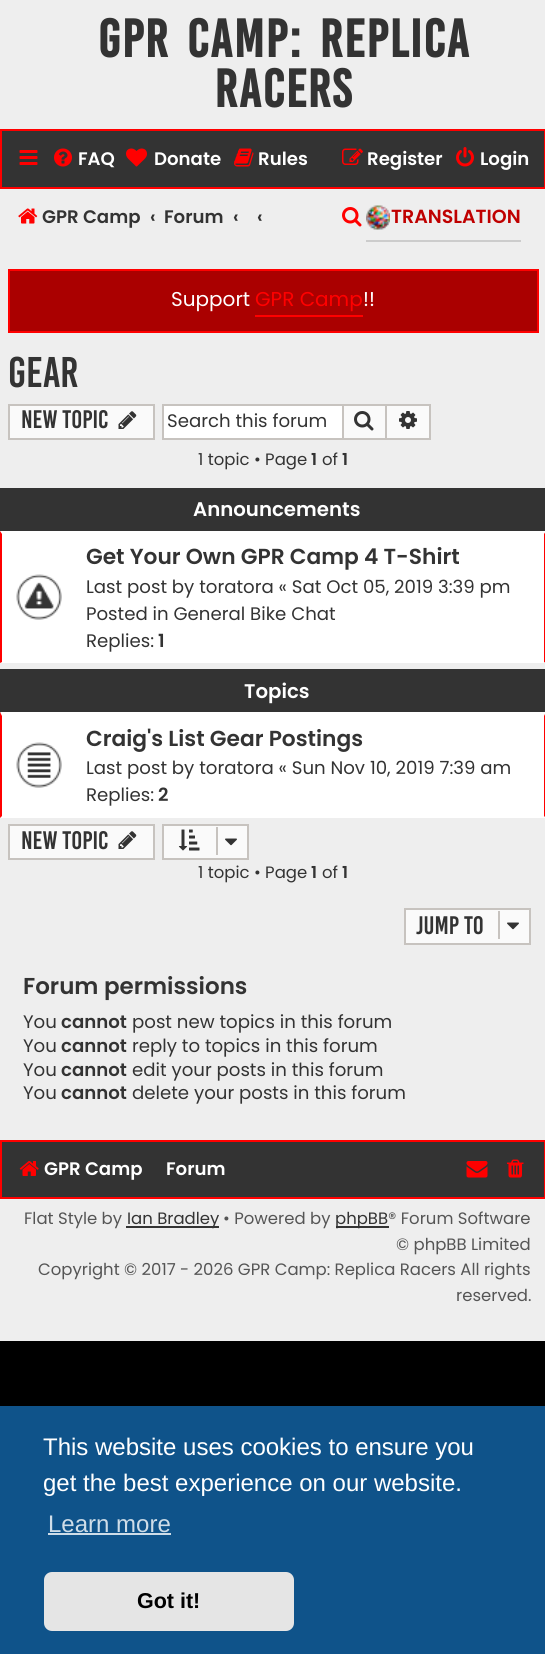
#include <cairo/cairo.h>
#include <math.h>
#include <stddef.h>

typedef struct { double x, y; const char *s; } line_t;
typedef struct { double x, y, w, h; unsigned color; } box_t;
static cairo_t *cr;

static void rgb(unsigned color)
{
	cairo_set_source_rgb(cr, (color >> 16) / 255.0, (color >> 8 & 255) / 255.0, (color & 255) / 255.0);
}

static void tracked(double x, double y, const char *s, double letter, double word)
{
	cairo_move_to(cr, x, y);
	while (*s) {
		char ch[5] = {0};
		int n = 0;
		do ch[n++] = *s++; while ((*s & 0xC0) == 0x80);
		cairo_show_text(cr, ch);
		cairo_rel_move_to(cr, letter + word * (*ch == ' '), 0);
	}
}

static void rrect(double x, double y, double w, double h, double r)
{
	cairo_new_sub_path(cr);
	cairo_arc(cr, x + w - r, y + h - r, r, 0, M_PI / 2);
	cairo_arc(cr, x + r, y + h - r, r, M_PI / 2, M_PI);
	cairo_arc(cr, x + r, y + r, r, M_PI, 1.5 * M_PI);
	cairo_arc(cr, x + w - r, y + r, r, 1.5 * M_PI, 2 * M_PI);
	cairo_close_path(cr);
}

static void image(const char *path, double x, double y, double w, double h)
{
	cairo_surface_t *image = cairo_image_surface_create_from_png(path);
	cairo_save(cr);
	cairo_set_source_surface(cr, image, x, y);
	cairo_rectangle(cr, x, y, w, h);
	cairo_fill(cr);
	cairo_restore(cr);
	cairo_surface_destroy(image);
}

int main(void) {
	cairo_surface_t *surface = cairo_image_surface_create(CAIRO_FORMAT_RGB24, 545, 1654);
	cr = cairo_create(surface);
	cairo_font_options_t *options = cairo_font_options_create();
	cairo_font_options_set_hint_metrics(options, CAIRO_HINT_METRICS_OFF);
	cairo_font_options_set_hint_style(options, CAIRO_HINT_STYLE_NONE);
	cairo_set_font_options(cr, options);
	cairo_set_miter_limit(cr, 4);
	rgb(0x000000);
	cairo_paint(cr);
	rgb(0xeeeeee);
	cairo_rectangle(cr, 0, 189, 545, 1152);
	cairo_fill(cr);
	cairo_rectangle(cr, 0, 0, 545, 129);
	cairo_fill(cr);
	rgb(0x333333);
	cairo_rectangle(cr, 1, 130, 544, 58);
	cairo_fill_preserve(cr);
	rgb(0xff0000);
	cairo_stroke(cr);
	image("img/1.png", 19, 150, 19, 15);
	image("img/2.png", 54, 148, 18, 19);
	image("img/3.png", 126, 148, 21, 19);
	image("img/4.png", 234, 148, 20, 19);
	image("img/5.png", 342, 148, 21, 17);
	image("img/6.png", 456, 147, 18, 20);
	image("img/7.png", 18, 208, 20, 16);
	image("img/8.png", 342, 207, 20, 20);
	rgb(0xcccccc);
	cairo_rectangle(cr, 366, 240, 155, 2);
	cairo_fill(cr);
	image("img/9.png", 366, 205, 24, 25);
	rgb(0xaa0000);
	cairo_rectangle(cr, 9, 270, 529, 62);
	cairo_fill_preserve(cr);
	rgb(0xff0000);
	cairo_stroke(cr);
	cairo_rectangle(cr, 255, 315, 108, 2);
	cairo_fill(cr);
	rgb(0xfafafa);
	cairo_rectangle(cr, 9, 405, 145, 34);
	cairo_fill_preserve(cr);
	rgb(0xc7c3bf);
	cairo_stroke(cr);
	image("img/10.png", 118, 411, 19, 18);
	{
		static const box_t items[] = {
			{164, 406, 178, 32, 0xffffff},
			{162, 404, 180, 2, 0xc7c3bf},
			{162, 438, 180, 2, 0xc7c3bf},
			{162, 404, 2, 36, 0xc7c3bf},
		};
		for (size_t i = 0; i < sizeof items / sizeof *items; i++) {
			rgb(items[i].color);
			cairo_rectangle(cr, items[i].x, items[i].y, items[i].w, items[i].h);
			cairo_fill(cr);
		}
	}
	rgb(0xfafafa);
	cairo_rectangle(cr, 343, 405, 43, 34);
	cairo_fill_preserve(cr);
	rgb(0xc7c3bf);
	cairo_stroke(cr);
	image("img/11.png", 354, 411, 20, 20);
	{
		static const box_t items[] = {
			{387, 406, 42, 32, 0xfafafa},
			{387, 404, 44, 2, 0xc7c3bf},
			{429, 404, 2, 36, 0xc7c3bf},
			{387, 438, 44, 2, 0xc7c3bf},
		};
		for (size_t i = 0; i < sizeof items / sizeof *items; i++) {
			rgb(items[i].color);
			cairo_rectangle(cr, items[i].x, items[i].y, items[i].w, items[i].h);
			cairo_fill(cr);
		}
	}
	image("img/12.png", 399, 411, 18, 18);
	rgb(0x333333);
	cairo_rectangle(cr, 0, 488, 545, 43);
	cairo_fill(cr);
	rgb(0xffffff);
	cairo_rectangle(cr, 0, 531, 545, 132);
	cairo_fill(cr);
	rgb(0xff0000);
	cairo_new_path(cr);
	cairo_move_to(cr, 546, 531);
	cairo_line_to(cr, 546, 663);
	cairo_line_to(cr, 544, 662);
	cairo_line_to(cr, 544, 534);
	cairo_close_path(cr);
	cairo_fill(cr);
	cairo_new_path(cr);
	cairo_move_to(cr, 0, 663);
	cairo_line_to(cr, 0, 531);
	cairo_line_to(cr, 2, 534);
	cairo_line_to(cr, 2, 662);
	cairo_close_path(cr);
	cairo_fill(cr);
	image("img/13.png", 16, 574, 46, 46);
	rgb(0x333333);
	cairo_rectangle(cr, 0, 669, 545, 44);
	cairo_fill(cr);
	rgb(0xffffff);
	cairo_rectangle(cr, 0, 713, 545, 105);
	cairo_fill(cr);
	cairo_new_path(cr);
	cairo_move_to(cr, 0, 712);
	cairo_line_to(cr, 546, 712);
	cairo_line_to(cr, 544, 716);
	cairo_line_to(cr, 2, 716);
	cairo_close_path(cr);
	cairo_fill(cr);
	rgb(0xff0000);
	cairo_new_path(cr);
	cairo_move_to(cr, 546, 712);
	cairo_line_to(cr, 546, 818);
	cairo_line_to(cr, 544, 816);
	cairo_line_to(cr, 544, 716);
	cairo_close_path(cr);
	cairo_fill(cr);
	cairo_new_path(cr);
	cairo_move_to(cr, 0, 818);
	cairo_line_to(cr, 0, 712);
	cairo_line_to(cr, 2, 716);
	cairo_line_to(cr, 2, 816);
	cairo_close_path(cr);
	cairo_fill(cr);
	image("img/14.png", 16, 742, 46, 46);
	rgb(0xfafafa);
	cairo_rectangle(cr, 9, 825, 145, 34);
	cairo_fill_preserve(cr);
	rgb(0xc7c3bf);
	cairo_stroke(cr);
	image("img/10.png", 118, 831, 19, 18);
	rgb(0xfafafa);
	cairo_rectangle(cr, 163, 825, 85, 34);
	cairo_fill_preserve(cr);
	rgb(0xc7c3bf);
	cairo_stroke(cr);
	image("img/15.png", 178, 829, 22, 22);
	cairo_rectangle(cr, 216, 827, 2, 28);
	cairo_fill(cr);
	image("img/16.png", 225, 838, 12, 8);
	rgb(0xfafafa);
	cairo_rectangle(cr, 405, 909, 125, 35);
	cairo_fill_preserve(cr);
	rgb(0xc7c3bf);
	cairo_stroke(cr);
	cairo_rectangle(cr, 498, 911, 2, 28);
	cairo_fill(cr);
	image("img/16.png", 507, 922, 12, 8);
	rgb(0x333333);
	cairo_rectangle(cr, 1, 1141, 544, 57);
	cairo_fill_preserve(cr);
	rgb(0xff0000);
	cairo_stroke(cr);
	image("img/17.png", 19, 1161, 20, 15);
	image("img/18.png", 466, 1161, 22, 17);
	image("img/19.png", 507, 1159, 17, 19);
	{
		static const box_t items[] = {
			{126, 1226, 93, 2, 0x333333},
			{336, 1226, 53, 2, 0x333333},
			{0, 1406, 545, 248, 0x0f538a},
			{48, 1533, 123, 2, 0xcfdde8},
		};
		for (size_t i = 0; i < sizeof items / sizeof *items; i++) {
			rgb(items[i].color);
			cairo_rectangle(cr, items[i].x, items[i].y, items[i].w, items[i].h);
			cairo_fill(cr);
		}
	}
	rgb(0xe5e5e5);
	rrect(44, 1572, 250, 59, 8);
	cairo_fill(cr);
	cairo_select_font_face(cr, "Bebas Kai", CAIRO_FONT_SLANT_NORMAL, CAIRO_FONT_WEIGHT_BOLD);
	cairo_set_font_size(cr, 41.25);
	rgb(0x333333);
	tracked(98, 57, "GPR Camp: Replica", 1.5, 6);
	tracked(215, 107, "Racers", 1.5, 0);
	cairo_select_font_face(cr, "Poppins SemiBold", CAIRO_FONT_SLANT_NORMAL, CAIRO_FONT_WEIGHT_NORMAL);
	cairo_set_font_size(cr, 18.15);
	rgb(0xffffff);
	{
		static const line_t items[] = {
			{78, 165, "FAQ"},
			{154, 165, "Donate"},
			{258, 165, "Rules"},
			{367, 165, "Register"},
			{480, 165, "Login"},
		};
		for (size_t i = 0; i < sizeof items / sizeof *items; i++) {
			cairo_move_to(cr, items[i].x, items[i].y);
			cairo_show_text(cr, items[i].s);
		}
	}
	rgb(0x333333);
	{
		static const line_t items[] = {
			{42, 223, "GPR Camp"},
			{150, 223, "‹"},
			{164, 223, "Forum"},
			{233, 223, "‹"},
			{257, 223, "‹"},
		};
		for (size_t i = 0; i < sizeof items / sizeof *items; i++) {
			cairo_move_to(cr, items[i].x, items[i].y);
			cairo_show_text(cr, items[i].s);
		}
	}
	cairo_set_font_size(cr, 19);
	rgb(0xbf0000);
	cairo_move_to(cr, 391, 223);
	cairo_show_text(cr, "TRANSLATION");
	cairo_select_font_face(cr, "Poppins", CAIRO_FONT_SLANT_NORMAL, CAIRO_FONT_WEIGHT_NORMAL);
	cairo_set_font_size(cr, 20);
	rgb(0xffffff);
	cairo_move_to(cr, 171, 306);
	cairo_show_text(cr, "Support");
	rgb(0xff0000);
	cairo_move_to(cr, 255, 306);
	cairo_show_text(cr, "GPR Camp");
	rgb(0xffffff);
	cairo_move_to(cr, 363, 306);
	cairo_show_text(cr, "!!");
	cairo_select_font_face(cr, "Bebas Kai", CAIRO_FONT_SLANT_NORMAL, CAIRO_FONT_WEIGHT_NORMAL);
	cairo_set_font_size(cr, 33);
	rgb(0x333333);
	cairo_move_to(cr, 8, 387);
	cairo_show_text(cr, "Gear");
	cairo_set_font_size(cr, 19.5);
	cairo_move_to(cr, 21, 428);
	cairo_show_text(cr, "New Topic");
	cairo_select_font_face(cr, "Poppins", CAIRO_FONT_SLANT_NORMAL, CAIRO_FONT_WEIGHT_NORMAL);
	cairo_set_font_size(cr, 18.15);
	cairo_move_to(cr, 167, 427);
	cairo_show_text(cr, "Search this forum");
	cairo_set_font_size(cr, 16.5);
	cairo_move_to(cr, 198, 465);
	cairo_show_text(cr, "1 topic • Page");
	cairo_select_font_face(cr, "Poppins SemiBold", CAIRO_FONT_SLANT_NORMAL, CAIRO_FONT_WEIGHT_NORMAL);
	cairo_move_to(cr, 311, 465);
	cairo_show_text(cr, "1");
	cairo_select_font_face(cr, "Poppins", CAIRO_FONT_SLANT_NORMAL, CAIRO_FONT_WEIGHT_NORMAL);
	cairo_move_to(cr, 322, 465);
	cairo_show_text(cr, "of");
	cairo_select_font_face(cr, "Poppins SemiBold", CAIRO_FONT_SLANT_NORMAL, CAIRO_FONT_WEIGHT_NORMAL);
	cairo_move_to(cr, 342, 465);
	cairo_show_text(cr, "1");
	cairo_set_font_size(cr, 19.75);
	rgb(0xffffff);
	cairo_move_to(cr, 193, 516);
	cairo_show_text(cr, "Announcements");
	cairo_set_font_size(cr, 21.75);
	rgb(0x333333);
	cairo_move_to(cr, 86, 564);
	cairo_show_text(cr, "Get Your Own GPR Camp 4 T-Shirt");
	cairo_select_font_face(cr, "Poppins", CAIRO_FONT_SLANT_NORMAL, CAIRO_FONT_WEIGHT_NORMAL);
	cairo_set_font_size(cr, 18.15);
	{
		static const line_t items[] = {
			{86, 593, "Last post by toratora « Sat Oct 05, 2019 3:39 pm"},
			{86, 620, "Posted in General Bike Chat"},
			{86, 647, "Replies:"},
		};
		for (size_t i = 0; i < sizeof items / sizeof *items; i++) {
			cairo_move_to(cr, items[i].x, items[i].y);
			cairo_show_text(cr, items[i].s);
		}
	}
	cairo_select_font_face(cr, "Poppins SemiBold", CAIRO_FONT_SLANT_NORMAL, CAIRO_FONT_WEIGHT_NORMAL);
	cairo_move_to(cr, 158, 647);
	cairo_show_text(cr, "1");
	cairo_set_font_size(cr, 19.75);
	rgb(0xffffff);
	cairo_move_to(cr, 244, 698);
	cairo_show_text(cr, "Topics");
	cairo_set_font_size(cr, 21.75);
	rgb(0x333333);
	cairo_move_to(cr, 86, 746);
	cairo_show_text(cr, "Craig's List Gear Postings");
	cairo_select_font_face(cr, "Poppins", CAIRO_FONT_SLANT_NORMAL, CAIRO_FONT_WEIGHT_NORMAL);
	cairo_set_font_size(cr, 18.15);
	cairo_move_to(cr, 86, 774);
	cairo_show_text(cr, "Last post by toratora « Sun Nov 10, 2019 7:39 am");
	cairo_move_to(cr, 86, 801);
	cairo_show_text(cr, "Replies:");
	cairo_select_font_face(cr, "Poppins SemiBold", CAIRO_FONT_SLANT_NORMAL, CAIRO_FONT_WEIGHT_NORMAL);
	cairo_move_to(cr, 158, 801);
	cairo_show_text(cr, "2");
	cairo_select_font_face(cr, "Bebas Kai", CAIRO_FONT_SLANT_NORMAL, CAIRO_FONT_WEIGHT_NORMAL);
	cairo_set_font_size(cr, 19.5);
	cairo_move_to(cr, 21, 849);
	cairo_show_text(cr, "New Topic");
	cairo_select_font_face(cr, "Poppins", CAIRO_FONT_SLANT_NORMAL, CAIRO_FONT_WEIGHT_NORMAL);
	cairo_set_font_size(cr, 16.5);
	cairo_move_to(cr, 198, 878);
	cairo_show_text(cr, "1 topic • Page");
	cairo_select_font_face(cr, "Poppins SemiBold", CAIRO_FONT_SLANT_NORMAL, CAIRO_FONT_WEIGHT_NORMAL);
	cairo_move_to(cr, 311, 878);
	cairo_show_text(cr, "1");
	cairo_select_font_face(cr, "Poppins", CAIRO_FONT_SLANT_NORMAL, CAIRO_FONT_WEIGHT_NORMAL);
	cairo_move_to(cr, 322, 878);
	cairo_show_text(cr, "of");
	cairo_select_font_face(cr, "Poppins SemiBold", CAIRO_FONT_SLANT_NORMAL, CAIRO_FONT_WEIGHT_NORMAL);
	cairo_move_to(cr, 342, 878);
	cairo_show_text(cr, "1");
	cairo_select_font_face(cr, "Bebas Kai", CAIRO_FONT_SLANT_NORMAL, CAIRO_FONT_WEIGHT_NORMAL);
	cairo_set_font_size(cr, 19.5);
	cairo_move_to(cr, 416, 934);
	cairo_show_text(cr, "Jump to");
	cairo_select_font_face(cr, "Poppins SemiBold", CAIRO_FONT_SLANT_NORMAL, CAIRO_FONT_WEIGHT_NORMAL);
	cairo_set_font_size(cr, 23);
	cairo_move_to(cr, 23, 994);
	cairo_show_text(cr, "Forum permissions");
	cairo_select_font_face(cr, "Poppins", CAIRO_FONT_SLANT_NORMAL, CAIRO_FONT_WEIGHT_NORMAL);
	cairo_set_font_size(cr, 18.15);
	cairo_move_to(cr, 23, 1028);
	cairo_show_text(cr, "You");
	cairo_select_font_face(cr, "Poppins SemiBold", CAIRO_FONT_SLANT_NORMAL, CAIRO_FONT_WEIGHT_NORMAL);
	cairo_move_to(cr, 61, 1028);
	cairo_show_text(cr, "cannot");
	cairo_select_font_face(cr, "Poppins", CAIRO_FONT_SLANT_NORMAL, CAIRO_FONT_WEIGHT_NORMAL);
	cairo_move_to(cr, 132, 1028);
	cairo_show_text(cr, "post new topics in this forum");
	cairo_move_to(cr, 23, 1052);
	cairo_show_text(cr, "You");
	cairo_select_font_face(cr, "Poppins SemiBold", CAIRO_FONT_SLANT_NORMAL, CAIRO_FONT_WEIGHT_NORMAL);
	cairo_move_to(cr, 61, 1052);
	cairo_show_text(cr, "cannot");
	cairo_select_font_face(cr, "Poppins", CAIRO_FONT_SLANT_NORMAL, CAIRO_FONT_WEIGHT_NORMAL);
	cairo_move_to(cr, 132, 1052);
	cairo_show_text(cr, "reply to topics in this forum");
	cairo_move_to(cr, 23, 1076);
	cairo_show_text(cr, "You");
	cairo_select_font_face(cr, "Poppins SemiBold", CAIRO_FONT_SLANT_NORMAL, CAIRO_FONT_WEIGHT_NORMAL);
	cairo_move_to(cr, 61, 1076);
	cairo_show_text(cr, "cannot");
	cairo_select_font_face(cr, "Poppins", CAIRO_FONT_SLANT_NORMAL, CAIRO_FONT_WEIGHT_NORMAL);
	cairo_move_to(cr, 132, 1076);
	cairo_show_text(cr, "edit your posts in this forum");
	cairo_move_to(cr, 23, 1099);
	cairo_show_text(cr, "You");
	cairo_select_font_face(cr, "Poppins SemiBold", CAIRO_FONT_SLANT_NORMAL, CAIRO_FONT_WEIGHT_NORMAL);
	cairo_move_to(cr, 61, 1099);
	cairo_show_text(cr, "cannot");
	cairo_select_font_face(cr, "Poppins", CAIRO_FONT_SLANT_NORMAL, CAIRO_FONT_WEIGHT_NORMAL);
	cairo_move_to(cr, 132, 1099);
	cairo_show_text(cr, "delete your posts in this forum");
	cairo_select_font_face(cr, "Poppins SemiBold", CAIRO_FONT_SLANT_NORMAL, CAIRO_FONT_WEIGHT_NORMAL);
	rgb(0xffffff);
	cairo_move_to(cr, 44, 1175);
	cairo_show_text(cr, "GPR Camp");
	cairo_move_to(cr, 166, 1175);
	cairo_show_text(cr, "Forum");
	cairo_select_font_face(cr, "Poppins", CAIRO_FONT_SLANT_NORMAL, CAIRO_FONT_WEIGHT_NORMAL);
	cairo_set_font_size(cr, 16.5);
	rgb(0x555555);
	cairo_move_to(cr, 24, 1224);
	cairo_show_text(cr, "Flat Style by");
	rgb(0x333333);
	cairo_move_to(cr, 127, 1224);
	cairo_show_text(cr, "Ian Bradley");
	rgb(0x555555);
	cairo_move_to(cr, 223, 1224);
	cairo_show_text(cr, "• Powered by");
	rgb(0x333333);
	cairo_move_to(cr, 335, 1224);
	cairo_show_text(cr, "phpBB");
	rgb(0x555555);
	{
		static const line_t items[] = {
			{388, 1224, "® Forum Software"},
			{396, 1250, "© phpBB Limited"},
			{38, 1275, "Copyright © 2017 - 2026 GPR Camp: Replica Racers All rights"},
			{456, 1301, "reserved."},
		};
		for (size_t i = 0; i < sizeof items / sizeof *items; i++) {
			cairo_move_to(cr, items[i].x, items[i].y);
			cairo_show_text(cr, items[i].s);
		}
	}
	cairo_select_font_face(cr, "Liberation Sans", CAIRO_FONT_SLANT_NORMAL, CAIRO_FONT_WEIGHT_NORMAL);
	cairo_set_font_size(cr, 24);
	rgb(0xffffff);
	cairo_move_to(cr, 43, 1455);
	cairo_show_text(cr, "This website uses cookies to ensure you");
	cairo_move_to(cr, 43, 1491);
	cairo_show_text(cr, "get the best experience on our website.");
	rgb(0xcfdde8);
	cairo_move_to(cr, 48, 1532);
	cairo_show_text(cr, "Learn more");
	cairo_select_font_face(cr, "Liberation Sans", CAIRO_FONT_SLANT_NORMAL, CAIRO_FONT_WEIGHT_BOLD);
	cairo_set_font_size(cr, 21.5);
	rgb(0x000000);
	cairo_move_to(cr, 137, 1608);
	cairo_show_text(cr, "Got it!");
	cairo_surface_write_to_png(surface, "page.png");
	cairo_font_options_destroy(options);
	cairo_destroy(cr);
	cairo_surface_destroy(surface);
	return 0;
}
